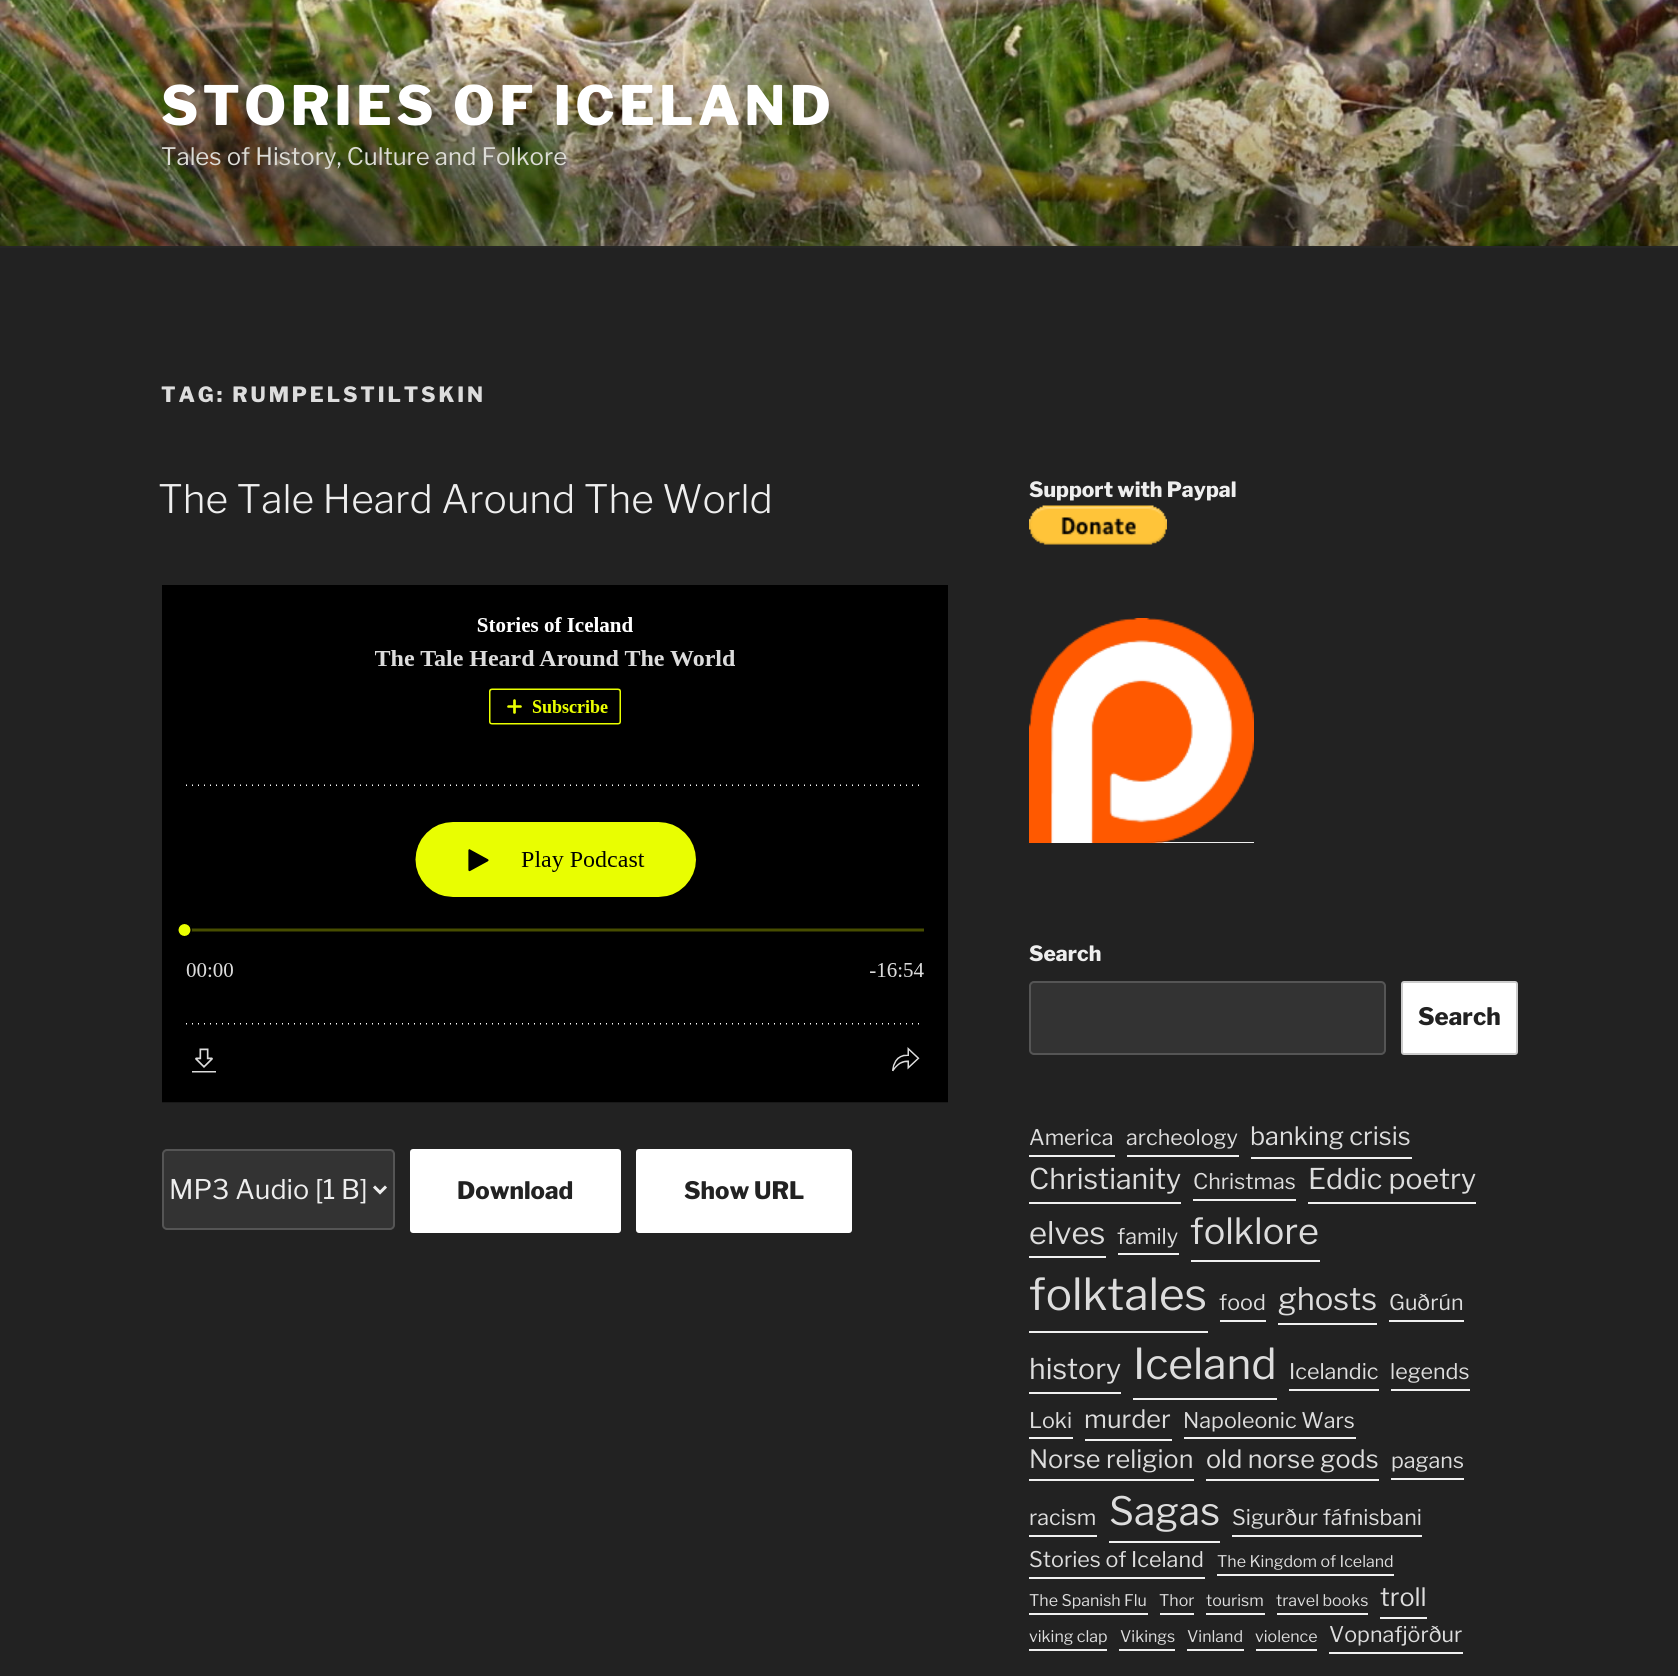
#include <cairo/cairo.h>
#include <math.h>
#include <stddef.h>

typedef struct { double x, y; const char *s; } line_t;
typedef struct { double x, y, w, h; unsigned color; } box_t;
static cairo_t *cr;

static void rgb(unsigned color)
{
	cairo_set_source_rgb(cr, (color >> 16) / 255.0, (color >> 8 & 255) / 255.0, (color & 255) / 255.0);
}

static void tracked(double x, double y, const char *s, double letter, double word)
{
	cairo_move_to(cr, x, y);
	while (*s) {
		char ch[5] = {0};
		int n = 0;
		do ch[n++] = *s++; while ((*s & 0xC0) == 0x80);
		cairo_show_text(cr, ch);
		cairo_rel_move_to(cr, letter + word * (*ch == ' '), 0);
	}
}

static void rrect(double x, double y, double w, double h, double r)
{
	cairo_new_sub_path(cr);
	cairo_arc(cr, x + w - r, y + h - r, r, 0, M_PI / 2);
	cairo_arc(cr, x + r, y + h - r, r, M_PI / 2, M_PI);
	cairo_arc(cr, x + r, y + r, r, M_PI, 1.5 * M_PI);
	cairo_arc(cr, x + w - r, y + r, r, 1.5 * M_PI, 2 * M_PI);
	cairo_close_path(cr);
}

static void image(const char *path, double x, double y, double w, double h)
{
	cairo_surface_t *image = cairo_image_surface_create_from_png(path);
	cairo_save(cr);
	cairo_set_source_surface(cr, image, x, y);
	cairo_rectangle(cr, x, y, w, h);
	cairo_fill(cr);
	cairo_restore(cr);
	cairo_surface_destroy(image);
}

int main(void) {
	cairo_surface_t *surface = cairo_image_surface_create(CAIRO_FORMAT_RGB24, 1678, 1676);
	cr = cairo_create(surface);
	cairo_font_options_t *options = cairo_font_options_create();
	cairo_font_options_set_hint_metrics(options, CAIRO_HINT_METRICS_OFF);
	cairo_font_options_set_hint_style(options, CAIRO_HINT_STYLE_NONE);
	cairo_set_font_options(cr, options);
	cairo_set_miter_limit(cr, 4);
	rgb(0x222222);
	cairo_paint(cr);
	rgb(0x262626);
	cairo_rectangle(cr, 0, 246, 1678, 2);
	cairo_fill(cr);
	image("img/1.png", 0, 0, 1678, 246);
	image("img/2.png", 162, 585, 786, 518);
	rgb(0x333333);
	rrect(163, 1150, 231, 79, 4);
	cairo_fill_preserve(cr);
	rgb(0x555555);
	cairo_stroke(cr);
	cairo_new_path(cr);
	cairo_move_to(cr, 374, 1186.5);
	cairo_line_to(cr, 380, 1192.5);
	cairo_line_to(cr, 386, 1186.5);
	rgb(0xeeeeee);
	cairo_set_line_width(cr, 3);
	cairo_stroke(cr);
	rgb(0xffffff);
	rrect(410, 1149, 211, 84, 3);
	cairo_fill(cr);
	rrect(636, 1149, 216, 84, 3);
	cairo_fill(cr);
	image("img/3.png", 1029, 505, 138, 40);
	rgb(0xf0f0f0);
	cairo_rectangle(cr, 1029, 842, 225, 1);
	cairo_fill(cr);
	image("img/4.png", 1029, 618, 225, 225);
	rgb(0x333333);
	rrect(1030, 982, 355, 72, 4);
	cairo_fill_preserve(cr);
	rgb(0x555555);
	cairo_set_line_width(cr, 2);
	cairo_stroke(cr);
	rgb(0xffffff);
	rrect(1402, 982, 115, 72, 2);
	cairo_fill_preserve(cr);
	rgb(0xcccccc);
	cairo_stroke(cr);
	{
		static const box_t items[] = {
			{1029, 1155, 86, 2, 0xf0f0f0},
			{1127, 1155, 112, 2, 0xf0f0f0},
			{1251, 1157, 161, 2, 0xf0f0f0},
			{1029, 1202, 152, 2, 0xf0f0f0},
			{1193, 1199, 103, 2, 0xf0f0f0},
			{1308, 1202, 168, 2, 0xf0f0f0},
			{1029, 1256, 77, 2, 0xf0f0f0},
			{1118, 1253, 61, 2, 0xf0f0f0},
			{1191, 1260, 129, 2, 0xf0f0f0},
			{1029, 1331, 179, 2, 0xf0f0f0},
			{1220, 1320, 46, 2, 0xf0f0f0},
			{1278, 1323, 99, 2, 0xf0f0f0},
			{1389, 1320, 75, 2, 0xf0f0f0},
			{1029, 1392, 92, 2, 0xf0f0f0},
			{1133, 1398, 144, 2, 0xf0f0f0},
			{1289, 1389, 90, 2, 0xf0f0f0},
			{1391, 1389, 79, 2, 0xf0f0f0},
			{1029, 1437, 44, 2, 0xf0f0f0},
			{1085, 1439, 87, 2, 0xf0f0f0},
			{1184, 1437, 172, 2, 0xf0f0f0},
			{1029, 1479, 165, 2, 0xf0f0f0},
			{1206, 1479, 173, 2, 0xf0f0f0},
			{1391, 1478, 73, 2, 0xf0f0f0},
			{1029, 1535, 68, 2, 0xf0f0f0},
			{1109, 1541, 111, 2, 0xf0f0f0},
			{1232, 1535, 190, 2, 0xf0f0f0},
			{1029, 1577, 176, 2, 0xf0f0f0},
			{1217, 1574, 177, 2, 0xf0f0f0},
			{1029, 1613, 119, 2, 0xf0f0f0},
			{1160, 1613, 34, 2, 0xf0f0f0},
			{1206, 1613, 59, 2, 0xf0f0f0},
			{1277, 1613, 91, 2, 0xf0f0f0},
			{1380, 1617, 47, 2, 0xf0f0f0},
			{1029, 1649, 78, 2, 0xf0f0f0},
			{1119, 1649, 56, 2, 0xf0f0f0},
			{1187, 1649, 57, 2, 0xf0f0f0},
			{1256, 1649, 61, 2, 0xf0f0f0},
			{1329, 1652, 134, 2, 0xf0f0f0},
		};
		for (size_t i = 0; i < sizeof items / sizeof *items; i++) {
			rgb(items[i].color);
			cairo_rectangle(cr, items[i].x, items[i].y, items[i].w, items[i].h);
			cairo_fill(cr);
		}
	}
	cairo_select_font_face(cr, "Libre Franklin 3 Thin", CAIRO_FONT_SLANT_NORMAL, CAIRO_FONT_WEIGHT_NORMAL);
	cairo_set_font_size(cr, 54);
	rgb(0xffffff);
	tracked(161, 125, "STORIES OF ICELAND", 4.3, 0);
	cairo_select_font_face(cr, "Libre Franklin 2 Thin", CAIRO_FONT_SLANT_NORMAL, CAIRO_FONT_WEIGHT_NORMAL);
	cairo_set_font_size(cr, 24);
	rgb(0xdcdcd6);
	cairo_move_to(cr, 161, 165);
	cairo_show_text(cr, "Tales of History, Culture and Folkore");
	cairo_select_font_face(cr, "Libre Franklin 3 Thin", CAIRO_FONT_SLANT_NORMAL, CAIRO_FONT_WEIGHT_NORMAL);
	cairo_set_font_size(cr, 21);
	rgb(0xdddddd);
	tracked(161, 402, "TAG: RUMPELSTILTSKIN", 2.9, 0);
	cairo_select_font_face(cr, "Libre Franklin Thin", CAIRO_FONT_SLANT_NORMAL, CAIRO_FONT_WEIGHT_NORMAL);
	cairo_set_font_size(cr, 39);
	rgb(0xeeeeee);
	cairo_move_to(cr, 158, 513);
	cairo_show_text(cr, "The Tale Heard Around The World");
	cairo_select_font_face(cr, "Libre Franklin 2 Thin", CAIRO_FONT_SLANT_NORMAL, CAIRO_FONT_WEIGHT_NORMAL);
	cairo_set_font_size(cr, 27);
	cairo_move_to(cr, 169, 1199);
	cairo_show_text(cr, "MP3 Audio [1 B]");
	cairo_select_font_face(cr, "Libre Franklin 3 Thin", CAIRO_FONT_SLANT_NORMAL, CAIRO_FONT_WEIGHT_NORMAL);
	cairo_set_font_size(cr, 24);
	rgb(0x222222);
	cairo_move_to(cr, 457, 1199);
	cairo_show_text(cr, "Download");
	cairo_move_to(cr, 684, 1199);
	cairo_show_text(cr, "Show URL");
	cairo_set_font_size(cr, 21);
	rgb(0xeeeeee);
	cairo_move_to(cr, 1029, 497);
	cairo_show_text(cr, "Support with Paypal");
	cairo_move_to(cr, 1029, 961);
	cairo_show_text(cr, "Search");
	cairo_set_font_size(cr, 24);
	rgb(0x222222);
	cairo_move_to(cr, 1418, 1025);
	cairo_show_text(cr, "Search");
	cairo_select_font_face(cr, "Libre Franklin 2 Thin", CAIRO_FONT_SLANT_NORMAL, CAIRO_FONT_WEIGHT_NORMAL);
	cairo_set_font_size(cr, 21.5);
	rgb(0xdddddd);
	cairo_move_to(cr, 1029, 1145);
	cairo_show_text(cr, "America");
	cairo_move_to(cr, 1126, 1145);
	cairo_show_text(cr, "archeology");
	cairo_set_font_size(cr, 25.25);
	cairo_move_to(cr, 1250, 1145);
	cairo_show_text(cr, "banking crisis");
	cairo_set_font_size(cr, 28.5);
	cairo_move_to(cr, 1029, 1189);
	cairo_show_text(cr, "Christianity");
	cairo_set_font_size(cr, 21.5);
	cairo_move_to(cr, 1193, 1189);
	cairo_show_text(cr, "Christmas");
	cairo_set_font_size(cr, 28.5);
	cairo_move_to(cr, 1308, 1189);
	cairo_show_text(cr, "Eddic poetry");
	cairo_set_font_size(cr, 31);
	cairo_move_to(cr, 1029, 1244);
	cairo_show_text(cr, "elves");
	cairo_set_font_size(cr, 21.5);
	cairo_move_to(cr, 1117, 1244);
	cairo_show_text(cr, "family");
	cairo_set_font_size(cr, 36);
	cairo_move_to(cr, 1190, 1244);
	cairo_show_text(cr, "folklore");
	cairo_set_font_size(cr, 44);
	cairo_move_to(cr, 1029, 1310);
	cairo_show_text(cr, "folktales");
	cairo_set_font_size(cr, 21.5);
	cairo_move_to(cr, 1219, 1310);
	cairo_show_text(cr, "food");
	cairo_set_font_size(cr, 31);
	cairo_move_to(cr, 1278, 1310);
	cairo_show_text(cr, "ghosts");
	cairo_set_font_size(cr, 21.5);
	cairo_move_to(cr, 1389, 1310);
	cairo_show_text(cr, "Guðrún");
	cairo_set_font_size(cr, 28.5);
	cairo_move_to(cr, 1029, 1379);
	cairo_show_text(cr, "history");
	cairo_set_font_size(cr, 42.5);
	cairo_move_to(cr, 1133, 1379);
	cairo_show_text(cr, "Iceland");
	cairo_set_font_size(cr, 21.5);
	{
		static const line_t items[] = {
			{1289, 1379, "Icelandic"},
			{1390, 1379, "legends"},
			{1029, 1428, "Loki"},
		};
		for (size_t i = 0; i < sizeof items / sizeof *items; i++) {
			cairo_move_to(cr, items[i].x, items[i].y);
			cairo_show_text(cr, items[i].s);
		}
	}
	cairo_set_font_size(cr, 25.25);
	cairo_move_to(cr, 1084, 1428);
	cairo_show_text(cr, "murder");
	cairo_set_font_size(cr, 21.5);
	cairo_move_to(cr, 1183, 1428);
	cairo_show_text(cr, "Napoleonic Wars");
	cairo_set_font_size(cr, 25.25);
	cairo_move_to(cr, 1029, 1468);
	cairo_show_text(cr, "Norse religion");
	cairo_move_to(cr, 1206, 1468);
	cairo_show_text(cr, "old norse gods");
	cairo_set_font_size(cr, 21.5);
	cairo_move_to(cr, 1391, 1468);
	cairo_show_text(cr, "pagans");
	cairo_move_to(cr, 1029, 1525);
	cairo_show_text(cr, "racism");
	cairo_set_font_size(cr, 39);
	cairo_move_to(cr, 1109, 1525);
	cairo_show_text(cr, "Sagas");
	cairo_set_font_size(cr, 21.5);
	cairo_move_to(cr, 1232, 1525);
	cairo_show_text(cr, "Sigurður fáfnisbani");
	cairo_move_to(cr, 1029, 1567);
	cairo_show_text(cr, "Stories of Iceland");
	cairo_set_font_size(cr, 16);
	{
		static const line_t items[] = {
			{1217, 1567, "The Kingdom of Iceland"},
			{1029, 1606, "The Spanish Flu"},
			{1159, 1606, "Thor"},
			{1206, 1606, "tourism"},
			{1276, 1606, "travel books"},
		};
		for (size_t i = 0; i < sizeof items / sizeof *items; i++) {
			cairo_move_to(cr, items[i].x, items[i].y);
			cairo_show_text(cr, items[i].s);
		}
	}
	cairo_set_font_size(cr, 25.25);
	cairo_move_to(cr, 1380, 1606);
	cairo_show_text(cr, "troll");
	cairo_set_font_size(cr, 16);
	{
		static const line_t items[] = {
			{1029, 1642, "viking clap"},
			{1120, 1642, "Vikings"},
			{1187, 1642, "Vinland"},
			{1255, 1642, "violence"},
		};
		for (size_t i = 0; i < sizeof items / sizeof *items; i++) {
			cairo_move_to(cr, items[i].x, items[i].y);
			cairo_show_text(cr, items[i].s);
		}
	}
	cairo_set_font_size(cr, 21.5);
	cairo_move_to(cr, 1329, 1642);
	cairo_show_text(cr, "Vopnafjörður");
	cairo_surface_write_to_png(surface, "page.png");
	cairo_font_options_destroy(options);
	cairo_destroy(cr);
	cairo_surface_destroy(surface);
	return 0;
}
